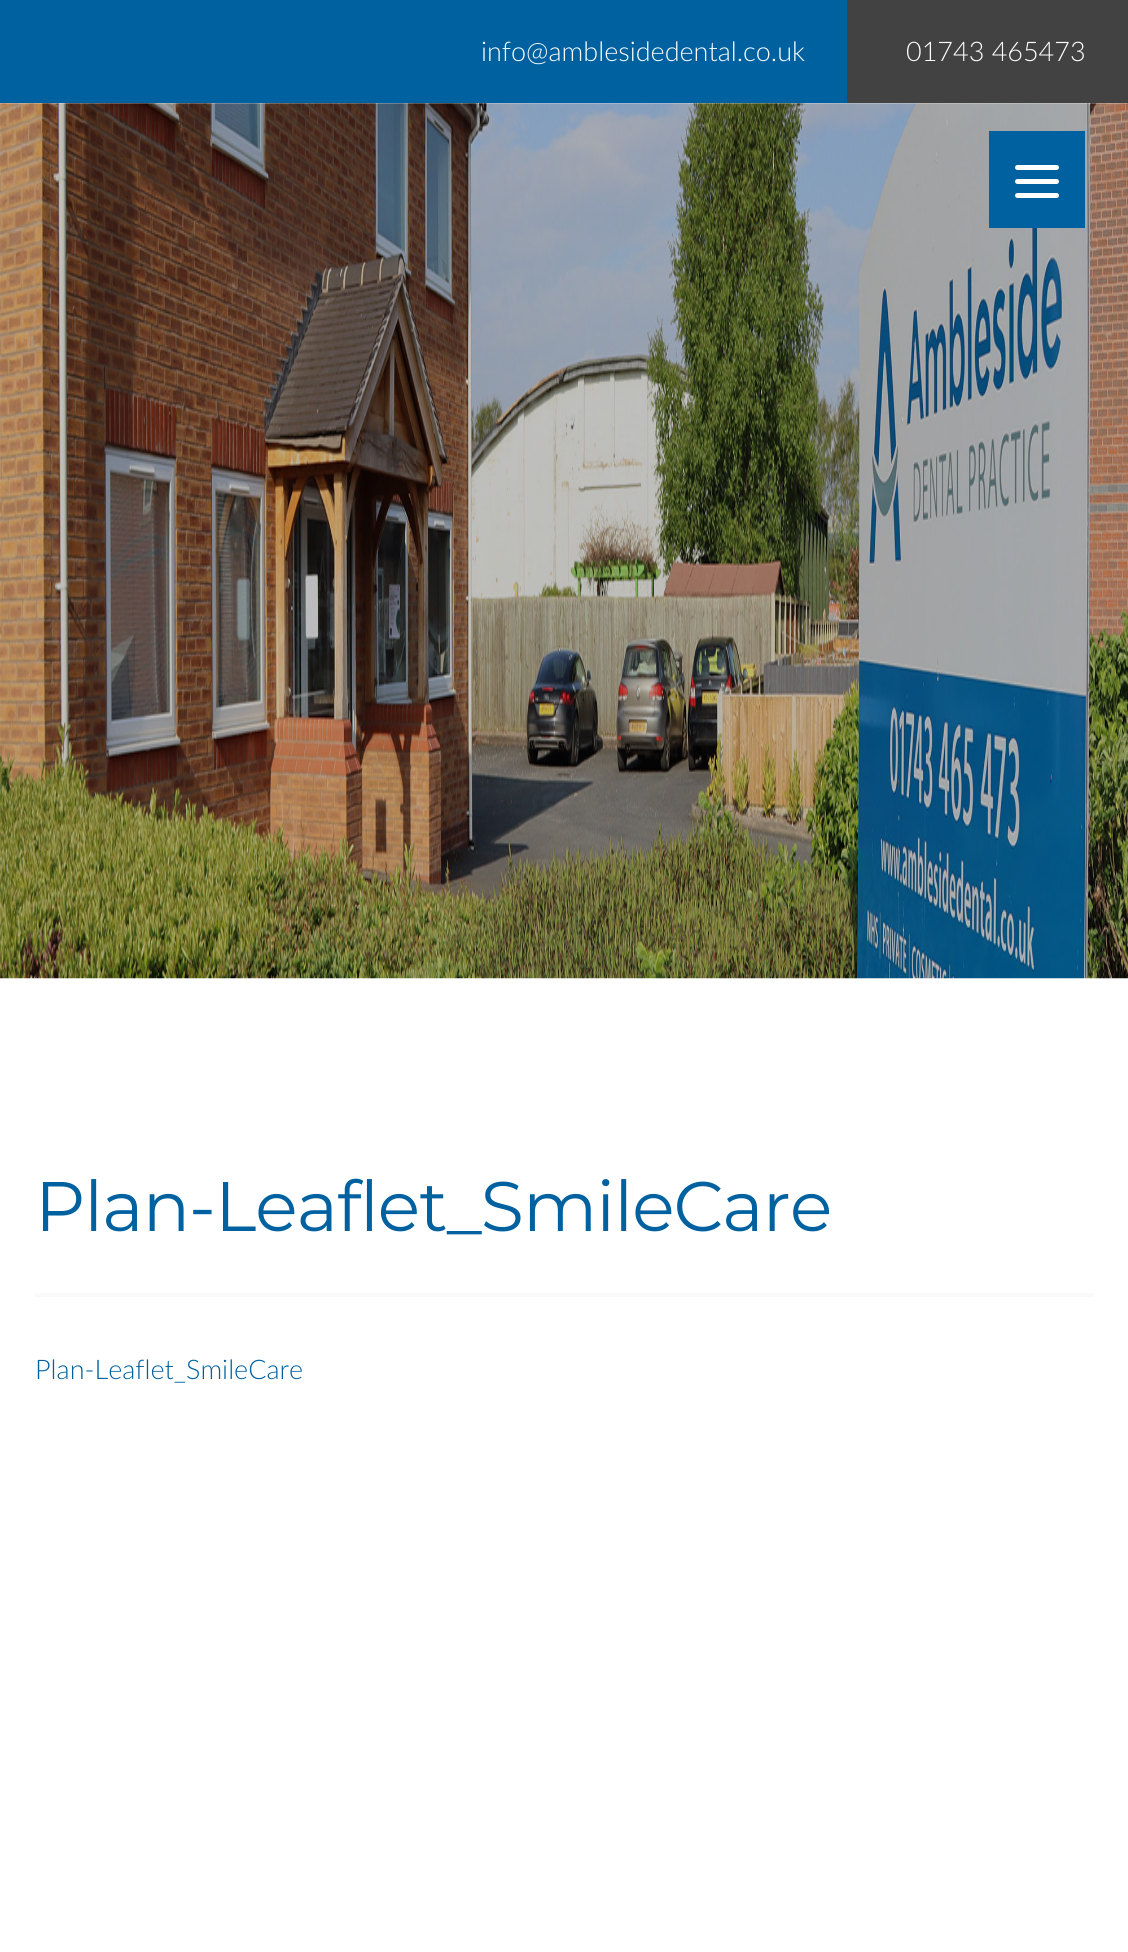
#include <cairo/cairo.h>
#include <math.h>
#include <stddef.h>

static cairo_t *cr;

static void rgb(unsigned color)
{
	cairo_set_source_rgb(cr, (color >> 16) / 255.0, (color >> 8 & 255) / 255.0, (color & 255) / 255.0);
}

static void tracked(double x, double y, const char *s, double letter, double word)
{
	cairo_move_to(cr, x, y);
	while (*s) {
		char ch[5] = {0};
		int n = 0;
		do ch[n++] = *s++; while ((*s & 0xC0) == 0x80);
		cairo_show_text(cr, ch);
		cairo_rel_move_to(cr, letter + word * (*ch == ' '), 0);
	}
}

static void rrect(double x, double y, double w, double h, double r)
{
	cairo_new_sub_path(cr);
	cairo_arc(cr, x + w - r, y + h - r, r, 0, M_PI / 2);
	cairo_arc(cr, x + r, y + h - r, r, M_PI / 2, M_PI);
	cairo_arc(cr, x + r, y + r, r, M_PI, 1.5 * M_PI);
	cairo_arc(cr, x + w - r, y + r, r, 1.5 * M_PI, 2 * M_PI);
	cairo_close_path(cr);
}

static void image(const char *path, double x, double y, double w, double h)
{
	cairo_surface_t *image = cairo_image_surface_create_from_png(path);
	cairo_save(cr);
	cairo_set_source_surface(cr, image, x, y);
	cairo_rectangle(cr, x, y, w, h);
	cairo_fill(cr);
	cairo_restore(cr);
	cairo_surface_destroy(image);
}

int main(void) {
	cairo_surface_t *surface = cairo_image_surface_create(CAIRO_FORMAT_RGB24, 1128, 1952);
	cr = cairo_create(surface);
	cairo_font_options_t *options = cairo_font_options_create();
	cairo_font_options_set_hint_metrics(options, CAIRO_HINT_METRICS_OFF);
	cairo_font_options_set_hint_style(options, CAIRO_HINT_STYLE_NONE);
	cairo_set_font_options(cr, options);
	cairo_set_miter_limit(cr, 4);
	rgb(0xffffff);
	cairo_paint(cr);
	rgb(0x0061a0);
	cairo_rectangle(cr, 0, 0, 847, 103);
	cairo_fill(cr);
	rgb(0x424242);
	cairo_rectangle(cr, 847, 0, 281, 103);
	cairo_fill(cr);
	image("img/1.png", 0, 103, 1128, 876);
	rgb(0x0061a0);
	cairo_rectangle(cr, 989, 131, 96, 97);
	cairo_fill(cr);
	rgb(0xffffff);
	rrect(1015, 179, 44, 5, 2.5);
	cairo_fill(cr);
	rrect(1015, 165, 44, 5, 2.5);
	cairo_fill(cr);
	rrect(1015, 193, 44, 5, 2.5);
	cairo_fill(cr);
	rgb(0xfafafa);
	cairo_rectangle(cr, 35, 1293, 1059, 4);
	cairo_fill(cr);
	cairo_select_font_face(cr, "Lato Light", CAIRO_FONT_SLANT_NORMAL, CAIRO_FONT_WEIGHT_NORMAL);
	cairo_set_font_size(cr, 27);
	rgb(0xffffff);
	cairo_move_to(cr, 481, 61);
	cairo_show_text(cr, "info@amblesidedental.co.uk");
	cairo_move_to(cr, 906, 61);
	cairo_show_text(cr, "01743 465473");
	cairo_select_font_face(cr, "Montserrat", CAIRO_FONT_SLANT_NORMAL, CAIRO_FONT_WEIGHT_NORMAL);
	cairo_set_font_size(cr, 70);
	rgb(0x0061a0);
	tracked(35, 1231, "Plan-Leaflet_SmileCare", -0.9, 0);
	cairo_select_font_face(cr, "Lato Light", CAIRO_FONT_SLANT_NORMAL, CAIRO_FONT_WEIGHT_NORMAL);
	cairo_set_font_size(cr, 27);
	cairo_move_to(cr, 35, 1379);
	cairo_show_text(cr, "Plan-Leaflet_SmileCare");
	cairo_surface_write_to_png(surface, "page.png");
	cairo_font_options_destroy(options);
	cairo_destroy(cr);
	cairo_surface_destroy(surface);
	return 0;
}
